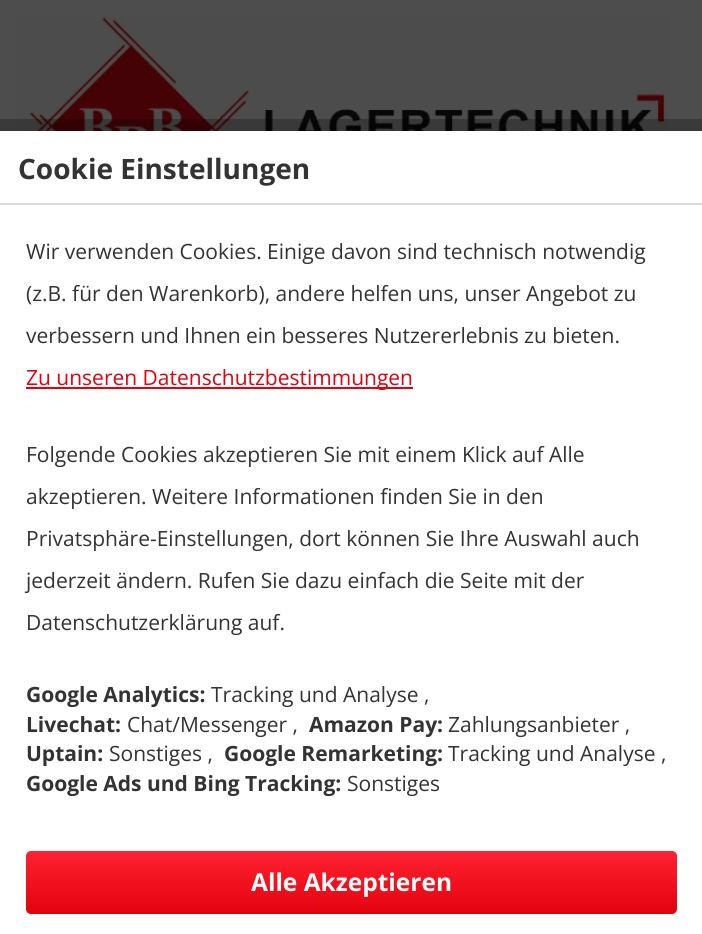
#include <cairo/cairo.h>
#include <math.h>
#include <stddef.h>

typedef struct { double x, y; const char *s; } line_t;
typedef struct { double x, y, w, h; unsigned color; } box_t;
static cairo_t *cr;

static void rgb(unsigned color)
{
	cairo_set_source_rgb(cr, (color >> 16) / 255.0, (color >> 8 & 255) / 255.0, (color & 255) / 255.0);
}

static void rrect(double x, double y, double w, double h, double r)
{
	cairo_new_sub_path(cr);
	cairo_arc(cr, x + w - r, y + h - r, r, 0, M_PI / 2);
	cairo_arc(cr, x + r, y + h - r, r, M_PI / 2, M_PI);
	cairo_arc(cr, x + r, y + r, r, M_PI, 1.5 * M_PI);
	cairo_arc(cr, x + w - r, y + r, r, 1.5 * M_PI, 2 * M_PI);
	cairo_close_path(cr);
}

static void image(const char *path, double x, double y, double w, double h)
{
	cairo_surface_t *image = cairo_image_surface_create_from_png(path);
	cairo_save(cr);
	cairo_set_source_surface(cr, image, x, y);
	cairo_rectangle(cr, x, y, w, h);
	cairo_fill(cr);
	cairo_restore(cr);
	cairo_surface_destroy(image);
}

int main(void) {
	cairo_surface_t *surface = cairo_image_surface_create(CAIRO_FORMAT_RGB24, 702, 934);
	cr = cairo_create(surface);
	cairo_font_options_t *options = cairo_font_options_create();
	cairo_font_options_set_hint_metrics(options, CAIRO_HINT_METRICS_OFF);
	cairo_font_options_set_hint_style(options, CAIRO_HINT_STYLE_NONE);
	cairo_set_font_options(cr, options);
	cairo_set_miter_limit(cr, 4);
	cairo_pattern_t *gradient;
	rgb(0x4d4d4d);
	cairo_paint(cr);
	image("img/1.png", 17, 17, 651, 114);
	cairo_rectangle(cr, -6, 125, 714, 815);
	cairo_set_source_rgba(cr, 0, 0, 0, 0.25);
	cairo_set_line_width(cr, 12);
	cairo_stroke(cr);
	{
		static const box_t items[] = {
			{0, 131, 702, 803, 0xffffff},
			{0, 203, 702, 2, 0xdadae5},
			{26, 387, 387, 2, 0xe3010f},
		};
		for (size_t i = 0; i < sizeof items / sizeof *items; i++) {
			rgb(items[i].color);
			cairo_rectangle(cr, items[i].x, items[i].y, items[i].w, items[i].h);
			cairo_fill(cr);
		}
	}
	gradient = cairo_pattern_create_linear(352, 851, 352, 914);
	cairo_pattern_add_color_stop_rgba(gradient, 0, 1, 0.133, 0.188, 1);
	cairo_pattern_add_color_stop_rgba(gradient, 1, 0.89, 0.004, 0.059, 1);
	cairo_set_source(cr, gradient);
	cairo_pattern_destroy(gradient);
	rrect(26, 851, 651, 63, 5);
	cairo_fill(cr);
	cairo_select_font_face(cr, "Open Sans", CAIRO_FONT_SLANT_NORMAL, CAIRO_FONT_WEIGHT_BOLD);
	cairo_set_font_size(cr, 28);
	rgb(0x333333);
	cairo_move_to(cr, 18, 179);
	cairo_show_text(cr, "Cookie Einstellungen");
	cairo_select_font_face(cr, "Open Sans", CAIRO_FONT_SLANT_NORMAL, CAIRO_FONT_WEIGHT_NORMAL);
	cairo_set_font_size(cr, 21);
	{
		static const line_t items[] = {
			{26, 259, "Wir verwenden Cookies. Einige davon sind technisch notwendig"},
			{26, 301, "(z.B. für den Warenkorb), andere helfen uns, unser Angebot zu"},
			{26, 343, "verbessern und Ihnen ein besseres Nutzererlebnis zu bieten."},
		};
		for (size_t i = 0; i < sizeof items / sizeof *items; i++) {
			cairo_move_to(cr, items[i].x, items[i].y);
			cairo_show_text(cr, items[i].s);
		}
	}
	rgb(0xe3010f);
	cairo_move_to(cr, 26, 385);
	cairo_show_text(cr, "Zu unseren Datenschutzbestimmungen");
	rgb(0x333333);
	{
		static const line_t items[] = {
			{26, 462, "Folgende Cookies akzeptieren Sie mit einem Klick auf Alle"},
			{26, 504, "akzeptieren. Weitere Informationen finden Sie in den"},
			{26, 546, "Privatsphäre-Einstellungen, dort können Sie Ihre Auswahl auch"},
			{26, 588, "jederzeit ändern. Rufen Sie dazu einfach die Seite mit der"},
			{26, 630, "Datenschutzerklärung auf."},
		};
		for (size_t i = 0; i < sizeof items / sizeof *items; i++) {
			cairo_move_to(cr, items[i].x, items[i].y);
			cairo_show_text(cr, items[i].s);
		}
	}
	cairo_select_font_face(cr, "Open Sans", CAIRO_FONT_SLANT_NORMAL, CAIRO_FONT_WEIGHT_BOLD);
	cairo_move_to(cr, 26, 702);
	cairo_show_text(cr, "Google Analytics:");
	cairo_select_font_face(cr, "Open Sans", CAIRO_FONT_SLANT_NORMAL, CAIRO_FONT_WEIGHT_NORMAL);
	cairo_move_to(cr, 211, 702);
	cairo_show_text(cr, "Tracking und Analyse ,");
	cairo_select_font_face(cr, "Open Sans", CAIRO_FONT_SLANT_NORMAL, CAIRO_FONT_WEIGHT_BOLD);
	cairo_move_to(cr, 26, 732);
	cairo_show_text(cr, "Livechat:");
	cairo_select_font_face(cr, "Open Sans", CAIRO_FONT_SLANT_NORMAL, CAIRO_FONT_WEIGHT_NORMAL);
	cairo_move_to(cr, 127, 732);
	cairo_show_text(cr, "Chat/Messenger ,");
	cairo_select_font_face(cr, "Open Sans", CAIRO_FONT_SLANT_NORMAL, CAIRO_FONT_WEIGHT_BOLD);
	cairo_move_to(cr, 309, 732);
	cairo_show_text(cr, "Amazon Pay:");
	cairo_select_font_face(cr, "Open Sans", CAIRO_FONT_SLANT_NORMAL, CAIRO_FONT_WEIGHT_NORMAL);
	cairo_move_to(cr, 448, 732);
	cairo_show_text(cr, "Zahlungsanbieter ,");
	cairo_select_font_face(cr, "Open Sans", CAIRO_FONT_SLANT_NORMAL, CAIRO_FONT_WEIGHT_BOLD);
	cairo_move_to(cr, 26, 761);
	cairo_show_text(cr, "Uptain:");
	cairo_select_font_face(cr, "Open Sans", CAIRO_FONT_SLANT_NORMAL, CAIRO_FONT_WEIGHT_NORMAL);
	cairo_move_to(cr, 109, 761);
	cairo_show_text(cr, "Sonstiges ,");
	cairo_select_font_face(cr, "Open Sans", CAIRO_FONT_SLANT_NORMAL, CAIRO_FONT_WEIGHT_BOLD);
	cairo_move_to(cr, 224, 761);
	cairo_show_text(cr, "Google Remarketing:");
	cairo_select_font_face(cr, "Open Sans", CAIRO_FONT_SLANT_NORMAL, CAIRO_FONT_WEIGHT_NORMAL);
	cairo_move_to(cr, 448, 761);
	cairo_show_text(cr, "Tracking und Analyse ,");
	cairo_select_font_face(cr, "Open Sans", CAIRO_FONT_SLANT_NORMAL, CAIRO_FONT_WEIGHT_BOLD);
	cairo_move_to(cr, 26, 791);
	cairo_show_text(cr, "Google Ads und Bing Tracking:");
	cairo_select_font_face(cr, "Open Sans", CAIRO_FONT_SLANT_NORMAL, CAIRO_FONT_WEIGHT_NORMAL);
	cairo_move_to(cr, 347, 791);
	cairo_show_text(cr, "Sonstiges");
	cairo_select_font_face(cr, "Open Sans", CAIRO_FONT_SLANT_NORMAL, CAIRO_FONT_WEIGHT_BOLD);
	cairo_set_font_size(cr, 24.5);
	rgb(0xffffff);
	cairo_move_to(cr, 251, 891);
	cairo_show_text(cr, "Alle Akzeptieren");
	cairo_surface_write_to_png(surface, "page.png");
	cairo_font_options_destroy(options);
	cairo_destroy(cr);
	cairo_surface_destroy(surface);
	return 0;
}
